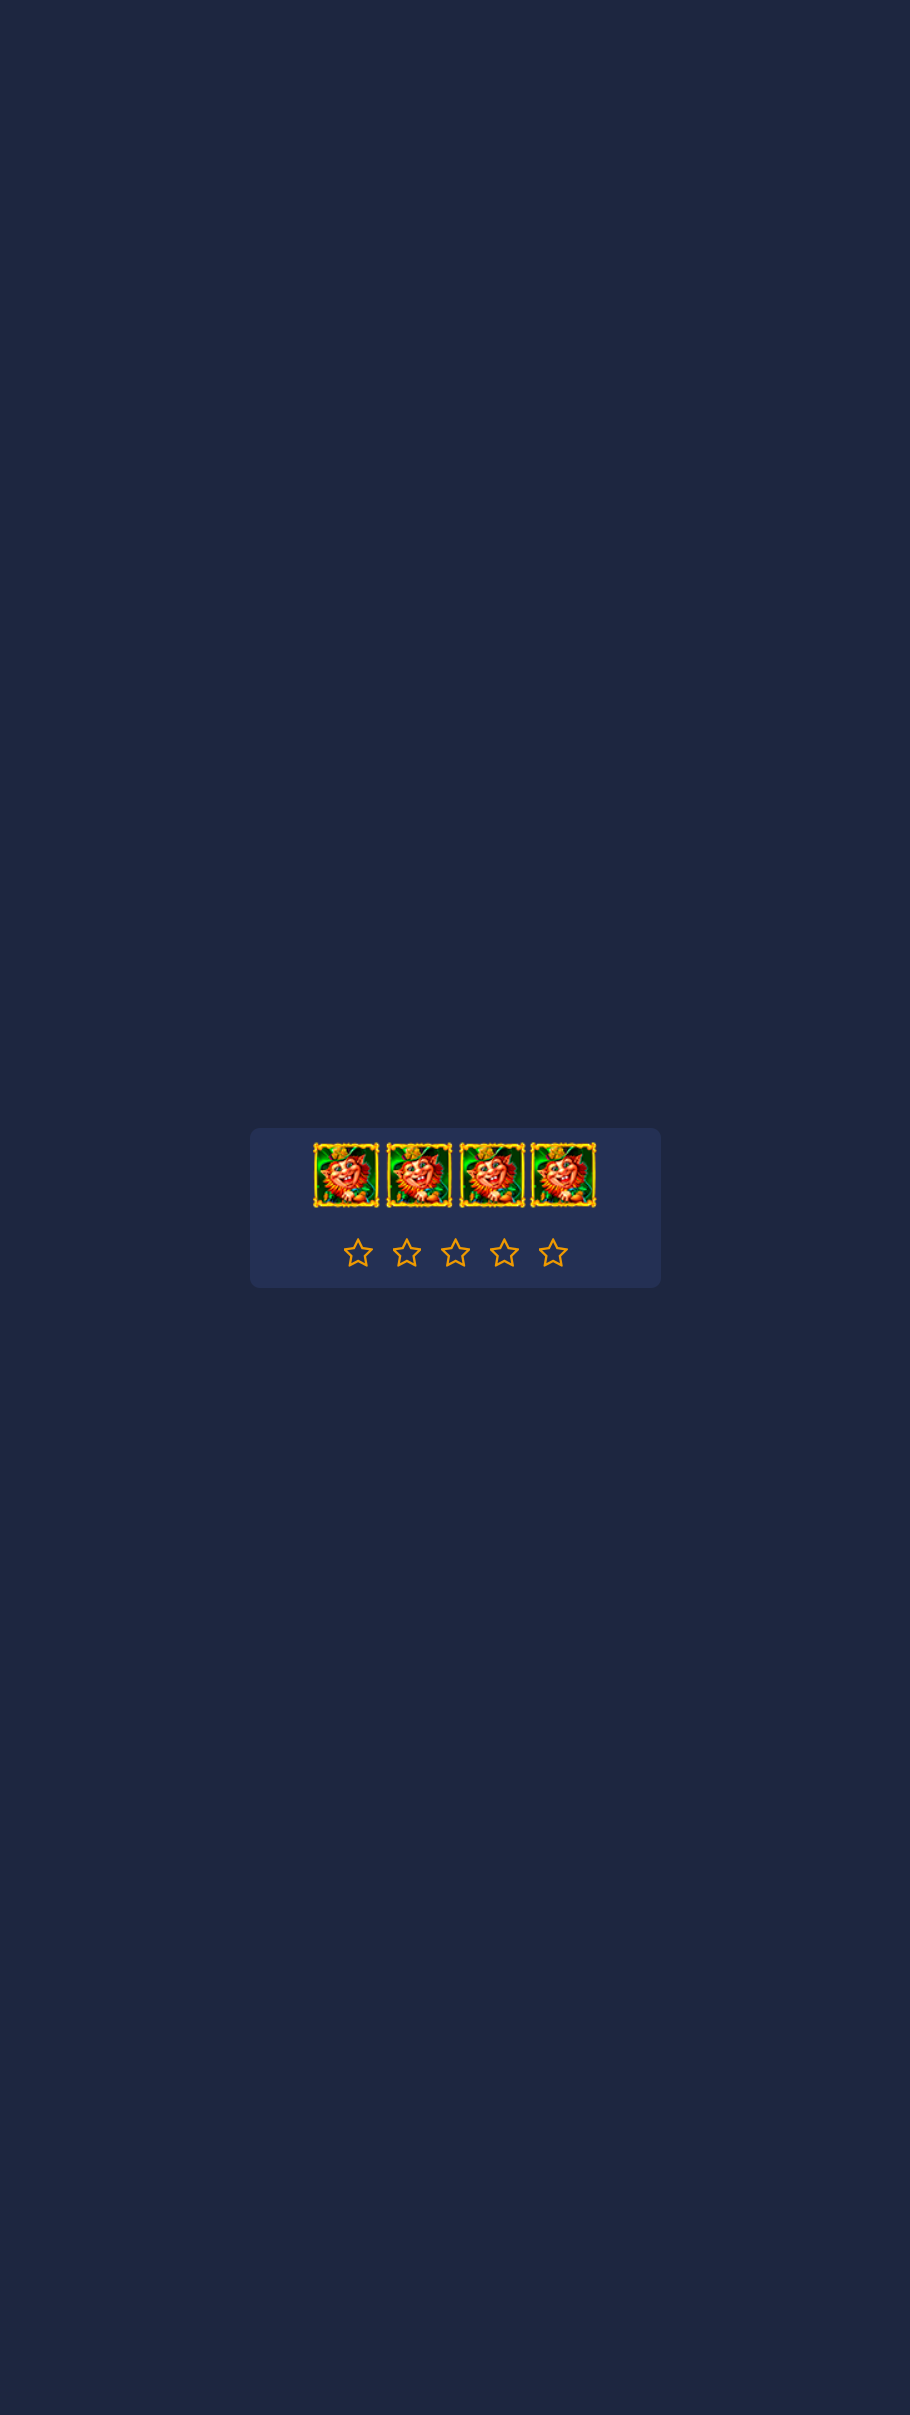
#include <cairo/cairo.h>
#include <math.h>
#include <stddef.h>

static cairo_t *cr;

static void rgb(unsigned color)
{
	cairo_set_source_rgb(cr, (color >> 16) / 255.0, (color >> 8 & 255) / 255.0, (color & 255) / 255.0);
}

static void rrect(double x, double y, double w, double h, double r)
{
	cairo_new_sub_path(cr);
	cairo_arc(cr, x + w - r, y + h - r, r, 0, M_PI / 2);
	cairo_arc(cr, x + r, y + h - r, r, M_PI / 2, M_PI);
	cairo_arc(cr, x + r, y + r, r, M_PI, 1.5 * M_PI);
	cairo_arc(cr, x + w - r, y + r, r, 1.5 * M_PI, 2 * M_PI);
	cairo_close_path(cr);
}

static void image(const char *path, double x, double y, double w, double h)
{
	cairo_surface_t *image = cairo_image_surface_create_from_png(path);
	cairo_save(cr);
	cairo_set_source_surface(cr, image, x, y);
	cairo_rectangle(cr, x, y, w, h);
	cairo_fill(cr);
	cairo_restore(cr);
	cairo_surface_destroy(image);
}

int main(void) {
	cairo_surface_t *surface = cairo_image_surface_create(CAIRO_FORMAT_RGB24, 910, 2415);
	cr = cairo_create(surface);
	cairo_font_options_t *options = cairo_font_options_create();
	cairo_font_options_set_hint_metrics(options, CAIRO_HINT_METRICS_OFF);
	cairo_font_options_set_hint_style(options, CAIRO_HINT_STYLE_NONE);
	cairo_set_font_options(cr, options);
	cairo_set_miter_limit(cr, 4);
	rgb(0x1d2640);
	cairo_paint(cr);
	rgb(0x243054);
	rrect(250, 1128, 411, 160, 10);
	cairo_fill(cr);
	image("img/1.png", 313, 1142, 284, 66);
	image("img/2.png", 344, 1238, 29, 29);
	image("img/3.png", 393, 1238, 28, 29);
	image("img/4.png", 441, 1238, 29, 29);
	image("img/5.png", 490, 1238, 29, 29);
	image("img/2.png", 539, 1238, 29, 29);
	cairo_surface_write_to_png(surface, "page.png");
	cairo_font_options_destroy(options);
	cairo_destroy(cr);
	cairo_surface_destroy(surface);
	return 0;
}
